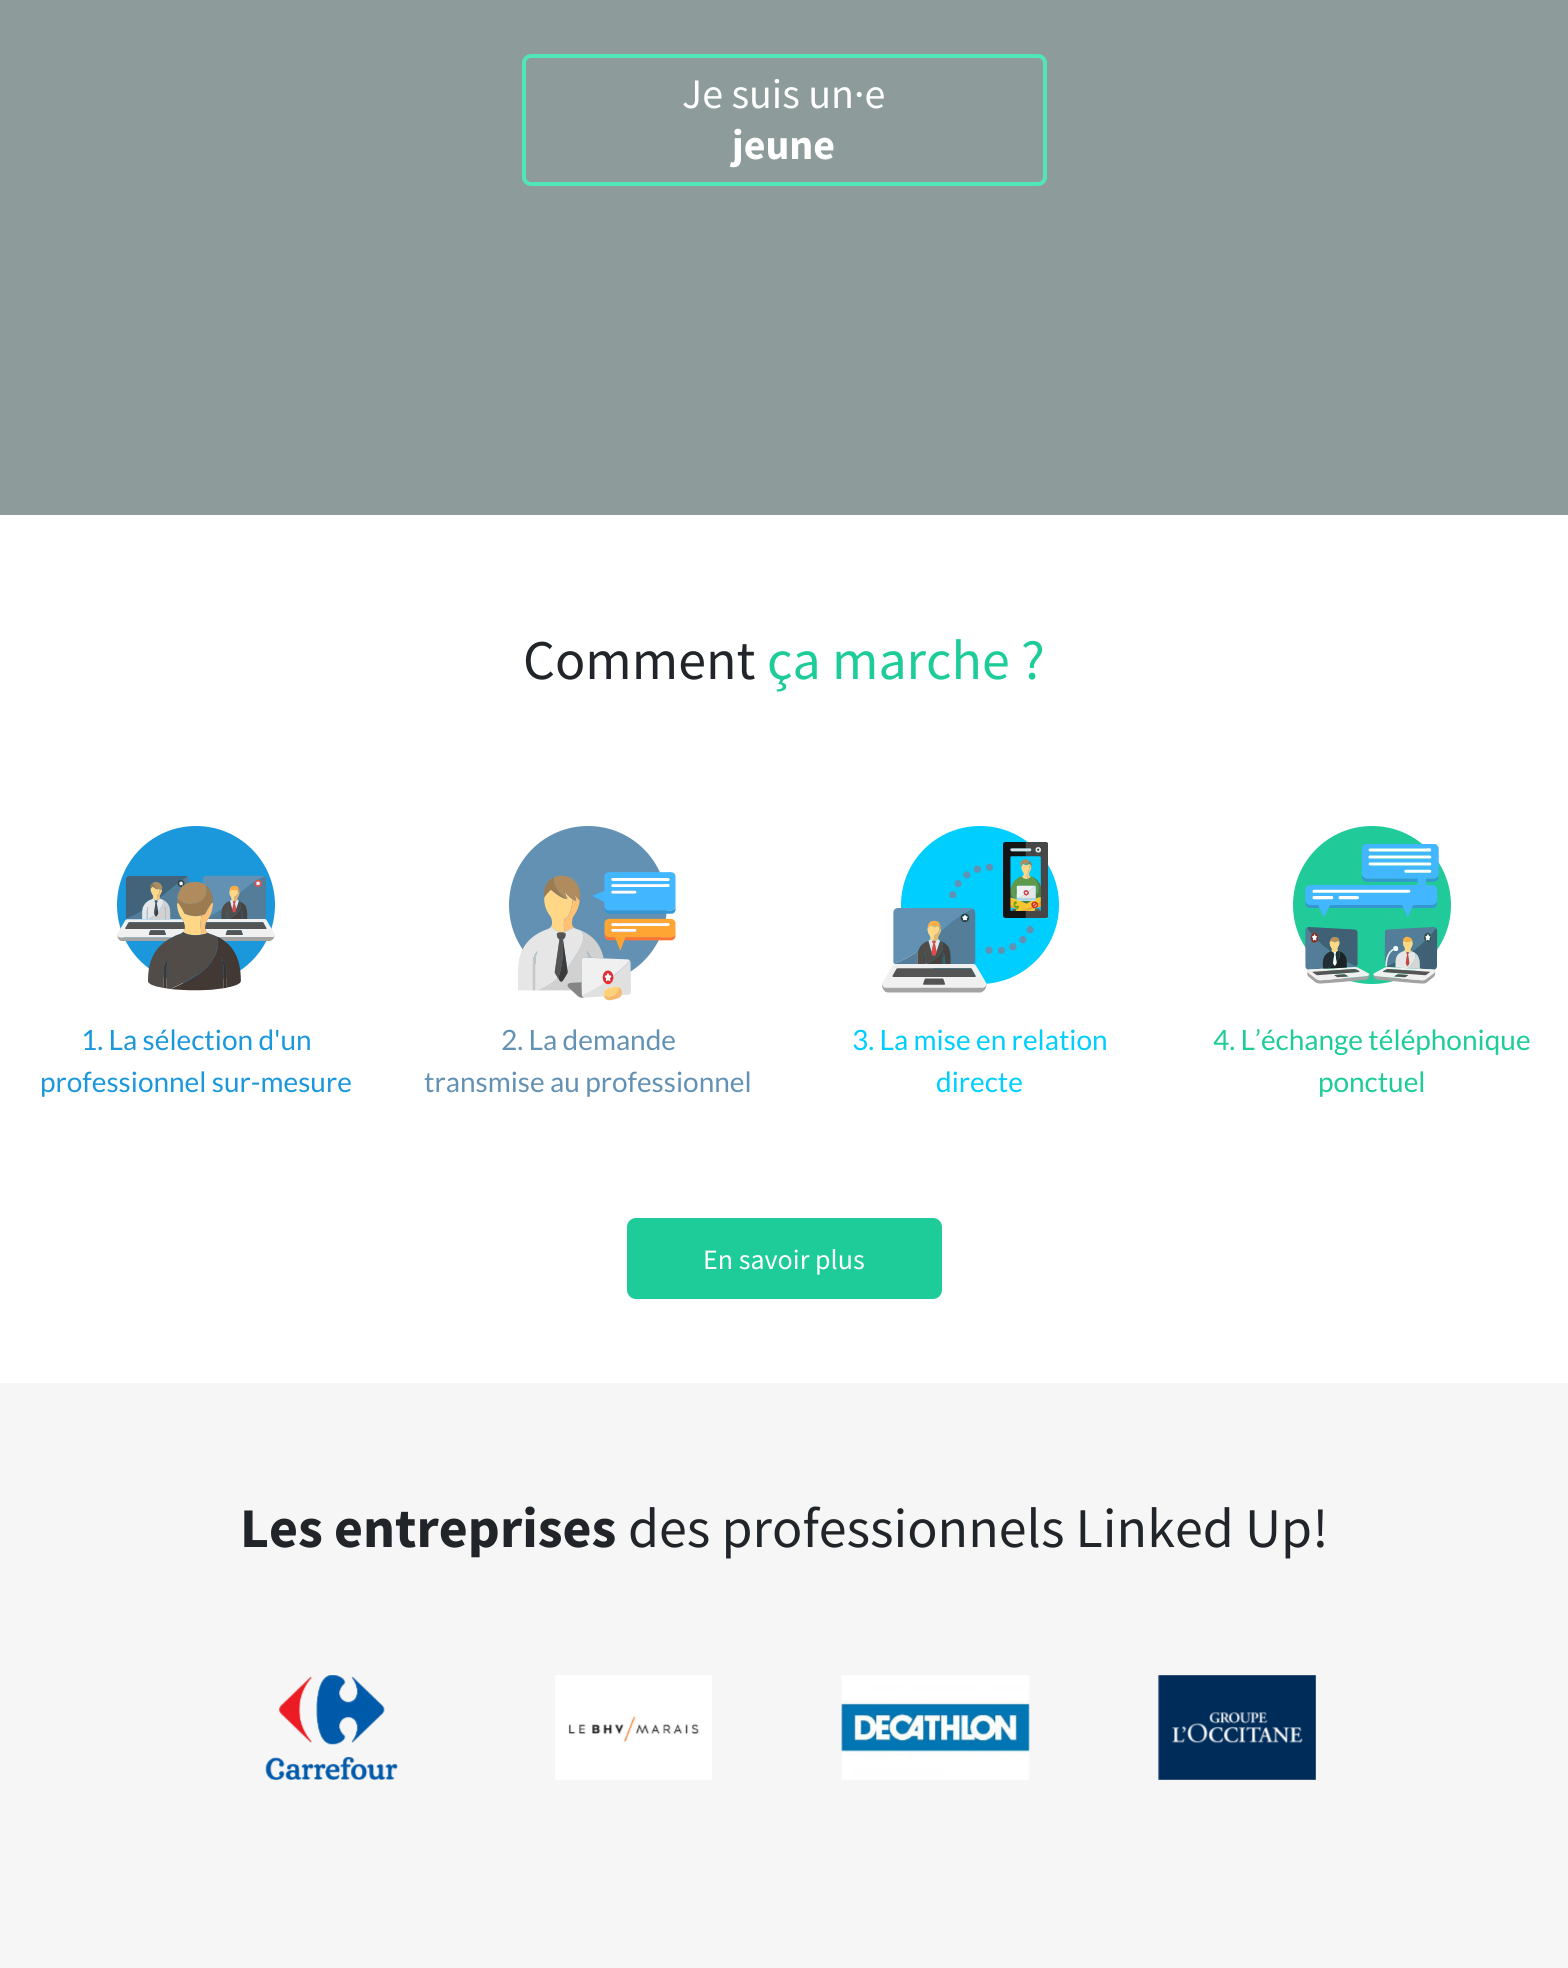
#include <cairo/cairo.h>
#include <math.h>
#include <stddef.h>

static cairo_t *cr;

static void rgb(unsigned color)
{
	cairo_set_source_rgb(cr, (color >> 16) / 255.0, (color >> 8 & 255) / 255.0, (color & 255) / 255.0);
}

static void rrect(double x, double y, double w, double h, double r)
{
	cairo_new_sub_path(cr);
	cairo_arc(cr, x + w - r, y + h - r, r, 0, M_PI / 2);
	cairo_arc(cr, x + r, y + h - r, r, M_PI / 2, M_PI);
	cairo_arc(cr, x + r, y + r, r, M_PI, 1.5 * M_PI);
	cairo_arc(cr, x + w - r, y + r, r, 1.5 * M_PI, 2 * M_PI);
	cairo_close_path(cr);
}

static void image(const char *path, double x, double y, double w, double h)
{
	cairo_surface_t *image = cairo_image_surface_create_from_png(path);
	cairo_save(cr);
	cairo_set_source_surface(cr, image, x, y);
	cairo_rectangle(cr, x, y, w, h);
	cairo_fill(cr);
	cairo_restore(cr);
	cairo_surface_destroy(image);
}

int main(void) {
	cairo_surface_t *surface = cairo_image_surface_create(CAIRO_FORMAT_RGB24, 1568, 1968);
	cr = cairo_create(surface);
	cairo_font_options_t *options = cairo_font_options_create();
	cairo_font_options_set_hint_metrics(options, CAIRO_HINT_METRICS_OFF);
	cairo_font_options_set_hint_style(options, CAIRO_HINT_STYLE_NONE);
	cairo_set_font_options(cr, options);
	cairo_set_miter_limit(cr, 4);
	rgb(0xf6f6f6);
	cairo_paint(cr);
	rgb(0x8d9b9b);
	cairo_rectangle(cr, 0, 0, 1568, 515);
	cairo_fill(cr);
	rrect(524, 56, 521, 128, 7);
	rgb(0x51e5ba);
	cairo_set_line_width(cr, 4);
	cairo_stroke(cr);
	rgb(0xffffff);
	cairo_rectangle(cr, 0, 515, 1568, 868);
	cairo_fill(cr);
	rgb(0x1b97db);
	cairo_arc(cr, 196, 905, 79, 0, 2 * M_PI);
	cairo_fill(cr);
	image("img/1.png", 117, 875, 158, 116);
	rgb(0x6391b3);
	cairo_arc(cr, 588, 905, 79, 0, 2 * M_PI);
	cairo_fill(cr);
	image("img/2.png", 518, 872, 158, 129);
	rgb(0x00ceff);
	cairo_arc(cr, 980, 905, 79, 0, 2 * M_PI);
	cairo_fill(cr);
	image("img/3.png", 882, 842, 166, 151);
	rgb(0x20ca99);
	cairo_arc(cr, 1372, 905, 79, 0, 2 * M_PI);
	cairo_fill(cr);
	image("img/4.png", 1305, 844, 134, 140);
	rgb(0x1ecc99);
	rrect(627, 1218, 315, 81, 9);
	cairo_fill(cr);
	image("img/5.png", 265, 1675, 133, 105);
	image("img/6.png", 555, 1675, 157, 105);
	image("img/7.png", 841, 1675, 189, 105);
	image("img/8.png", 1158, 1675, 158, 105);
	cairo_select_font_face(cr, "Source Sans Pro", CAIRO_FONT_SLANT_NORMAL, CAIRO_FONT_WEIGHT_NORMAL);
	cairo_set_font_size(cr, 42);
	rgb(0xffffff);
	cairo_move_to(cr, 682, 108);
	cairo_show_text(cr, "Je suis un·e");
	cairo_select_font_face(cr, "Source Sans Pro", CAIRO_FONT_SLANT_NORMAL, CAIRO_FONT_WEIGHT_BOLD);
	cairo_move_to(cr, 732, 159);
	cairo_show_text(cr, "jeune");
	cairo_select_font_face(cr, "Source Sans Pro", CAIRO_FONT_SLANT_NORMAL, CAIRO_FONT_WEIGHT_NORMAL);
	cairo_set_font_size(cr, 56);
	rgb(0x212529);
	cairo_move_to(cr, 523, 679);
	cairo_show_text(cr, "Comment");
	rgb(0x1ecc99);
	cairo_move_to(cr, 767, 679);
	cairo_show_text(cr, "ça marche ?");
	cairo_select_font_face(cr, "Lato", CAIRO_FONT_SLANT_NORMAL, CAIRO_FONT_WEIGHT_NORMAL);
	cairo_set_font_size(cr, 28);
	rgb(0x1b97db);
	cairo_move_to(cr, 81, 1050);
	cairo_show_text(cr, "1. La sélection d'un");
	cairo_move_to(cr, 40, 1092);
	cairo_show_text(cr, "professionnel sur-mesure");
	rgb(0x6391b3);
	cairo_move_to(cr, 501, 1050);
	cairo_show_text(cr, "2. La demande");
	cairo_move_to(cr, 424, 1092);
	cairo_show_text(cr, "transmise au professionnel");
	rgb(0x00ceff);
	cairo_move_to(cr, 852, 1050);
	cairo_show_text(cr, "3. La mise en relation");
	cairo_move_to(cr, 936, 1092);
	cairo_show_text(cr, "directe");
	rgb(0x1ecc99);
	cairo_move_to(cr, 1213, 1050);
	cairo_show_text(cr, "4. L’échange téléphonique");
	cairo_move_to(cr, 1318, 1092);
	cairo_show_text(cr, "ponctuel");
	cairo_select_font_face(cr, "Source Sans Pro", CAIRO_FONT_SLANT_NORMAL, CAIRO_FONT_WEIGHT_NORMAL);
	rgb(0xffffff);
	cairo_move_to(cr, 703, 1269);
	cairo_show_text(cr, "En savoir plus");
	cairo_select_font_face(cr, "Source Sans Pro", CAIRO_FONT_SLANT_NORMAL, CAIRO_FONT_WEIGHT_BOLD);
	cairo_set_font_size(cr, 56);
	rgb(0x212529);
	cairo_move_to(cr, 240, 1547);
	cairo_show_text(cr, "Les entreprises");
	cairo_select_font_face(cr, "Source Sans Pro", CAIRO_FONT_SLANT_NORMAL, CAIRO_FONT_WEIGHT_NORMAL);
	cairo_move_to(cr, 628, 1547);
	cairo_show_text(cr, "des professionnels Linked Up!");
	cairo_surface_write_to_png(surface, "page.png");
	cairo_font_options_destroy(options);
	cairo_destroy(cr);
	cairo_surface_destroy(surface);
	return 0;
}
